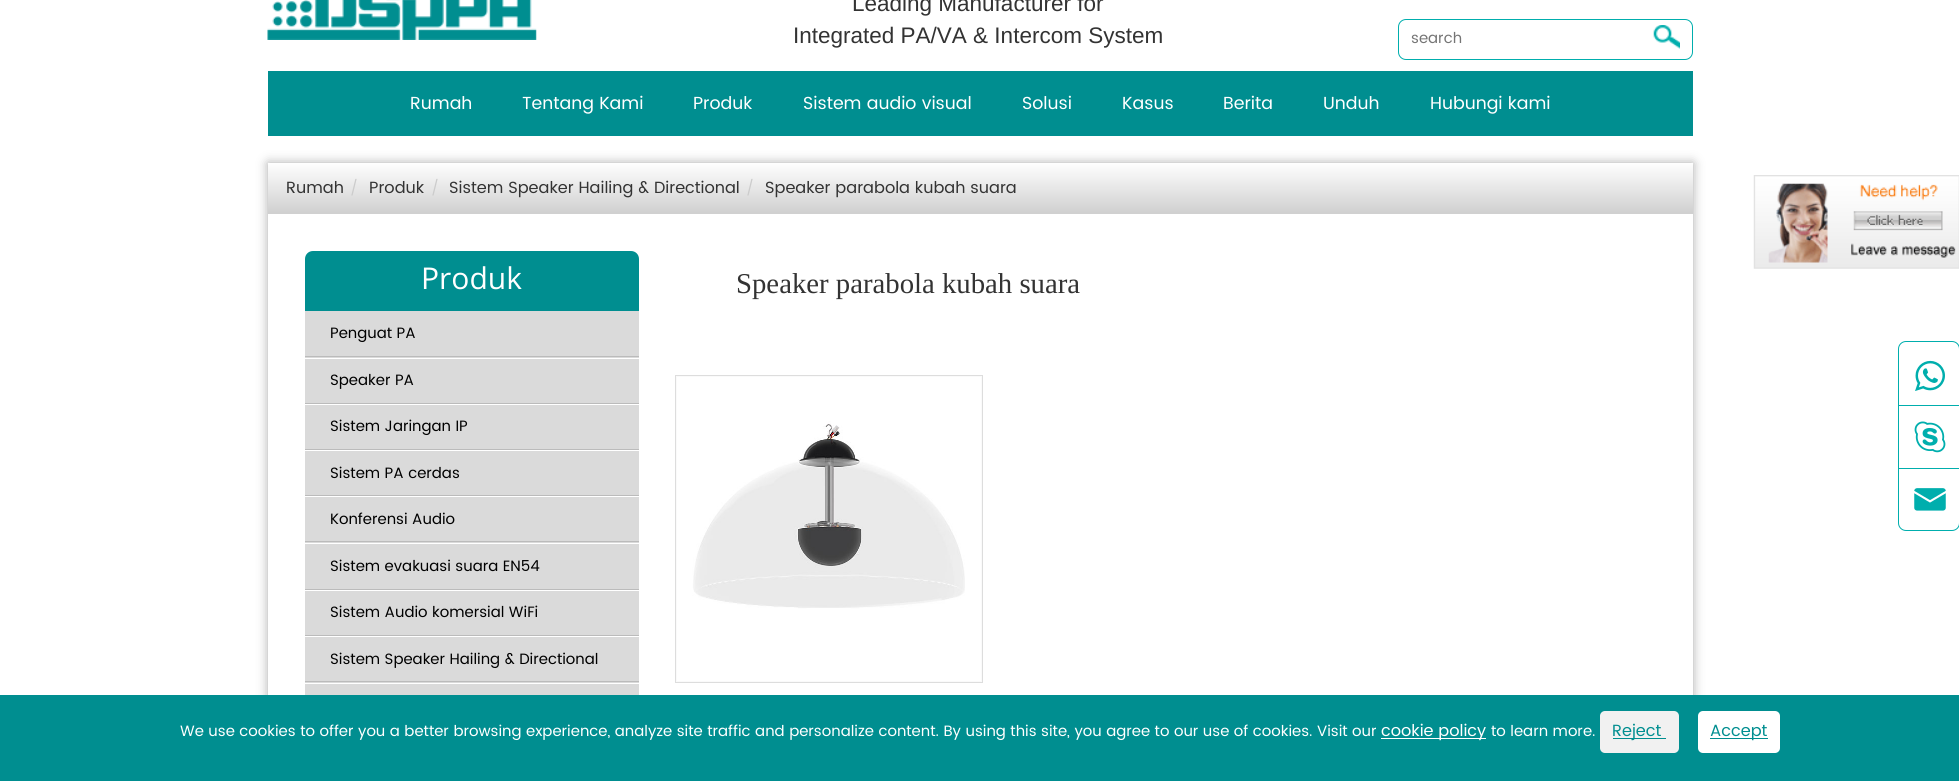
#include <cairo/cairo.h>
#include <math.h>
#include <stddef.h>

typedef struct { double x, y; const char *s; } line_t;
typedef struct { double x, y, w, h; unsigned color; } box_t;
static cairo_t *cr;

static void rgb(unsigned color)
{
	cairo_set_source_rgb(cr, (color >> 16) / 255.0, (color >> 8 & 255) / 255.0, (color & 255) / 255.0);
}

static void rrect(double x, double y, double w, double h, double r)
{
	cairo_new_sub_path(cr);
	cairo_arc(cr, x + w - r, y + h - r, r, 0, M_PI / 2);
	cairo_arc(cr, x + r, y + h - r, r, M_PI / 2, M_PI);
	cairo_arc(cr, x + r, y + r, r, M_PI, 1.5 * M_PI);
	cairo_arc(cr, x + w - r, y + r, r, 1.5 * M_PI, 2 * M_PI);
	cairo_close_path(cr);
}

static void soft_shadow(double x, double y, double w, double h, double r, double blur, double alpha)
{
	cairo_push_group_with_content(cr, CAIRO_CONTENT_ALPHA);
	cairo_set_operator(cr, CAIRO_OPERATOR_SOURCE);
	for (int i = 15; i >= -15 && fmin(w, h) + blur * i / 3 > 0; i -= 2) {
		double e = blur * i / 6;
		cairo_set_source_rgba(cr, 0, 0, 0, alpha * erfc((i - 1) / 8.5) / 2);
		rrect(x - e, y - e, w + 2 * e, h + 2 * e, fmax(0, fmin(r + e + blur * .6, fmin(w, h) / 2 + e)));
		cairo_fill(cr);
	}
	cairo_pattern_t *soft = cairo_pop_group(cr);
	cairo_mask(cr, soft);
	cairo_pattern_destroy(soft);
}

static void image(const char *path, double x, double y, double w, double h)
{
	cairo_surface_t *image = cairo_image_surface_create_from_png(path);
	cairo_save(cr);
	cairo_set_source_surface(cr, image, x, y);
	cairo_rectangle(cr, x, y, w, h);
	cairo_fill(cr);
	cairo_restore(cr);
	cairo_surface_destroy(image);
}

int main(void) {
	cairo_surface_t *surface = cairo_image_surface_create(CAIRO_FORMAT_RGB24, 1959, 781);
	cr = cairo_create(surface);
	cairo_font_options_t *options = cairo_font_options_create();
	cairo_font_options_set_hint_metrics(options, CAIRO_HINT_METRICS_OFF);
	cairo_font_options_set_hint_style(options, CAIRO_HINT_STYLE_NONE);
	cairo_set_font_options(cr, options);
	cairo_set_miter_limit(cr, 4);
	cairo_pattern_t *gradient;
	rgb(0xffffff);
	cairo_paint(cr);
	image("img/1.png", 267, 0, 270, 40);
	rrect(1398.5, 19.5, 294, 40, 7.5);
	rgb(0x00aead);
	cairo_set_line_width(cr, 1);
	cairo_stroke(cr);
	image("img/2.png", 1653, 25, 27, 24);
	rgb(0x008e90);
	cairo_rectangle(cr, 268, 71, 1425, 65);
	cairo_fill(cr);
	rgb(0xaaaaaa);
	soft_shadow(268, 163, 1425, 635, 0, 5.5, 1);
	rgb(0xffffff);
	cairo_rectangle(cr, 268, 214, 1425, 481);
	cairo_fill(cr);
	gradient = cairo_pattern_create_linear(980, 162, 980, 214);
	cairo_pattern_add_color_stop_rgba(gradient, 0, 1, 1, 1, 1);
	cairo_pattern_add_color_stop_rgba(gradient, 1, 0.812, 0.812, 0.812, 1);
	cairo_set_source(cr, gradient);
	cairo_pattern_destroy(gradient);
	cairo_rectangle(cr, 268, 163, 1425, 51);
	cairo_fill(cr);
	rgb(0x008e90);
	cairo_new_path(cr);
	cairo_move_to(cr, 313, 251);
	cairo_line_to(cr, 631, 251);
	cairo_curve_to(cr, 635.5, 251, 639, 254.5, 639, 259);
	cairo_line_to(cr, 639, 311);
	cairo_line_to(cr, 305, 311);
	cairo_line_to(cr, 305, 259);
	cairo_curve_to(cr, 305, 254.5, 308.5, 251, 313, 251);
	cairo_close_path(cr);
	cairo_fill(cr);
	{
		static const box_t items[] = {
			{305, 311, 334, 47, 0xdadada},
			{305, 356, 334, 1, 0xbbbbbb},
			{305, 359, 334, 44, 0xdadada},
			{305, 403, 334, 1, 0xbbbbbb},
			{305, 405, 334, 44, 0xdadada},
			{305, 449, 334, 1, 0xbbbbbb},
			{305, 451, 334, 44, 0xdadada},
			{305, 495, 334, 1, 0xbbbbbb},
			{305, 497, 334, 46, 0xdadada},
			{305, 541, 334, 1, 0xbbbbbb},
			{305, 544, 334, 45, 0xdadada},
			{305, 589, 334, 1, 0xbbbbbb},
			{305, 591, 334, 44, 0xdadada},
			{305, 635, 334, 1, 0xbbbbbb},
			{305, 637, 334, 46, 0xdadada},
			{305, 681, 334, 1, 0xbbbbbb},
			{305, 684, 334, 11, 0xdadada},
		};
		for (size_t i = 0; i < sizeof items / sizeof *items; i++) {
			rgb(items[i].color);
			cairo_rectangle(cr, items[i].x, items[i].y, items[i].w, items[i].h);
			cairo_fill(cr);
		}
	}
	rgb(0xfafafa);
	cairo_rectangle(cr, 675.5, 375.5, 307, 307);
	cairo_fill_preserve(cr);
	rgb(0xdddddd);
	cairo_stroke(cr);
	image("img/3.png", 677, 377, 304, 304);
	image("img/4.png", 1753, 175, 206, 94);
	rrect(1898.5, 341.5, 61, 189, 7.5);
	rgb(0x00aead);
	cairo_stroke(cr);
	image("img/5.png", 1915, 360, 30, 31);
	cairo_rectangle(cr, 1899, 405, 60, 1);
	cairo_fill(cr);
	image("img/6.png", 1914, 421, 32, 32);
	cairo_rectangle(cr, 1899, 468, 60, 1);
	cairo_fill(cr);
	image("img/7.png", 1914, 488, 32, 23);
	rgb(0x008e90);
	cairo_rectangle(cr, 0, 695, 1959, 86);
	cairo_fill(cr);
	rgb(0xffffff);
	cairo_rectangle(cr, 1381, 738, 105, 1);
	cairo_fill(cr);
	rgb(0xf1f1f1);
	rrect(1600, 711, 79, 42, 5);
	cairo_fill(cr);
	rgb(0x008e90);
	cairo_rectangle(cr, 1613, 738, 53, 1);
	cairo_fill(cr);
	rgb(0xffffff);
	rrect(1698, 711, 82, 42, 5);
	cairo_fill(cr);
	rgb(0x008e90);
	cairo_rectangle(cr, 1710, 738, 58, 1);
	cairo_fill(cr);
	cairo_select_font_face(cr, "Liberation Sans", CAIRO_FONT_SLANT_NORMAL, CAIRO_FONT_WEIGHT_NORMAL);
	cairo_set_font_size(cr, 22.5);
	rgb(0x333333);
	cairo_move_to(cr, 852, 11);
	cairo_show_text(cr, "Leading Manufacturer for");
	cairo_move_to(cr, 793, 43);
	cairo_show_text(cr, "Integrated PA/VA & Intercom System");
	cairo_select_font_face(cr, "Poppins", CAIRO_FONT_SLANT_NORMAL, CAIRO_FONT_WEIGHT_NORMAL);
	cairo_set_font_size(cr, 15);
	rgb(0x757575);
	cairo_move_to(cr, 1411, 43);
	cairo_show_text(cr, "search");
	cairo_set_font_size(cr, 17.5);
	rgb(0xffffff);
	{
		static const line_t items[] = {
			{410, 109, "Rumah"},
			{522, 109, "Tentang Kami"},
			{693, 109, "Produk"},
			{803, 109, "Sistem audio visual"},
			{1022, 109, "Solusi"},
			{1122, 109, "Kasus"},
			{1223, 109, "Berita"},
			{1323, 109, "Unduh"},
			{1430, 109, "Hubungi kami"},
		};
		for (size_t i = 0; i < sizeof items / sizeof *items; i++) {
			cairo_move_to(cr, items[i].x, items[i].y);
			cairo_show_text(cr, items[i].s);
		}
	}
	cairo_set_font_size(cr, 16.25);
	rgb(0x333333);
	cairo_move_to(cr, 286, 193);
	cairo_show_text(cr, "Rumah");
	cairo_set_font_size(cr, 15);
	rgb(0xcccccc);
	cairo_move_to(cr, 350, 193);
	cairo_show_text(cr, "/");
	cairo_set_font_size(cr, 16.25);
	rgb(0x333333);
	cairo_move_to(cr, 369, 193);
	cairo_show_text(cr, "Produk");
	cairo_set_font_size(cr, 15);
	rgb(0xcccccc);
	cairo_move_to(cr, 431, 193);
	cairo_show_text(cr, "/");
	cairo_set_font_size(cr, 16.25);
	rgb(0x333333);
	cairo_move_to(cr, 449, 193);
	cairo_show_text(cr, "Sistem Speaker Hailing & Directional");
	cairo_set_font_size(cr, 15);
	rgb(0xcccccc);
	cairo_move_to(cr, 746, 193);
	cairo_show_text(cr, "/");
	cairo_set_font_size(cr, 16.25);
	rgb(0x333333);
	cairo_move_to(cr, 765, 193);
	cairo_show_text(cr, "Speaker parabola kubah suara");
	cairo_select_font_face(cr, "Open Sans", CAIRO_FONT_SLANT_NORMAL, CAIRO_FONT_WEIGHT_NORMAL);
	cairo_set_font_size(cr, 30);
	rgb(0xffffff);
	cairo_move_to(cr, 421, 289);
	cairo_show_text(cr, "Produk");
	cairo_select_font_face(cr, "Poppins", CAIRO_FONT_SLANT_NORMAL, CAIRO_FONT_WEIGHT_NORMAL);
	cairo_set_font_size(cr, 15);
	rgb(0x000000);
	{
		static const line_t items[] = {
			{330, 338, "Penguat PA"},
			{330, 385, "Speaker PA"},
			{330, 431, "Sistem Jaringan IP"},
			{330, 478, "Sistem PA cerdas"},
			{330, 524, "Konferensi Audio"},
			{330, 571, "Sistem evakuasi suara EN54"},
			{330, 617, "Sistem Audio komersial WiFi"},
			{330, 664, "Sistem Speaker Hailing & Directional"},
		};
		for (size_t i = 0; i < sizeof items / sizeof *items; i++) {
			cairo_move_to(cr, items[i].x, items[i].y);
			cairo_show_text(cr, items[i].s);
		}
	}
	cairo_select_font_face(cr, "Liberation Serif", CAIRO_FONT_SLANT_NORMAL, CAIRO_FONT_WEIGHT_NORMAL);
	cairo_set_font_size(cr, 28.75);
	rgb(0x333333);
	cairo_move_to(cr, 736, 293);
	cairo_show_text(cr, "Speaker parabola kubah suara");
	cairo_select_font_face(cr, "Poppins", CAIRO_FONT_SLANT_NORMAL, CAIRO_FONT_WEIGHT_NORMAL);
	cairo_set_font_size(cr, 15);
	rgb(0xffffff);
	cairo_move_to(cr, 180, 736);
	cairo_show_text(cr, "We use cookies to offer you a better browsing experience, analyze site traffic and personalize content. By using this site, you agree to our use of cookies. Visit our");
	cairo_set_font_size(cr, 16.25);
	cairo_move_to(cr, 1381, 736);
	cairo_show_text(cr, "cookie policy");
	cairo_set_font_size(cr, 15);
	cairo_move_to(cr, 1491, 736);
	cairo_show_text(cr, "to learn more.");
	cairo_set_font_size(cr, 16.25);
	rgb(0x008e90);
	cairo_move_to(cr, 1612, 736);
	cairo_show_text(cr, "Reject");
	cairo_move_to(cr, 1710, 736);
	cairo_show_text(cr, "Accept");
	cairo_surface_write_to_png(surface, "page.png");
	cairo_font_options_destroy(options);
	cairo_destroy(cr);
	cairo_surface_destroy(surface);
	return 0;
}
